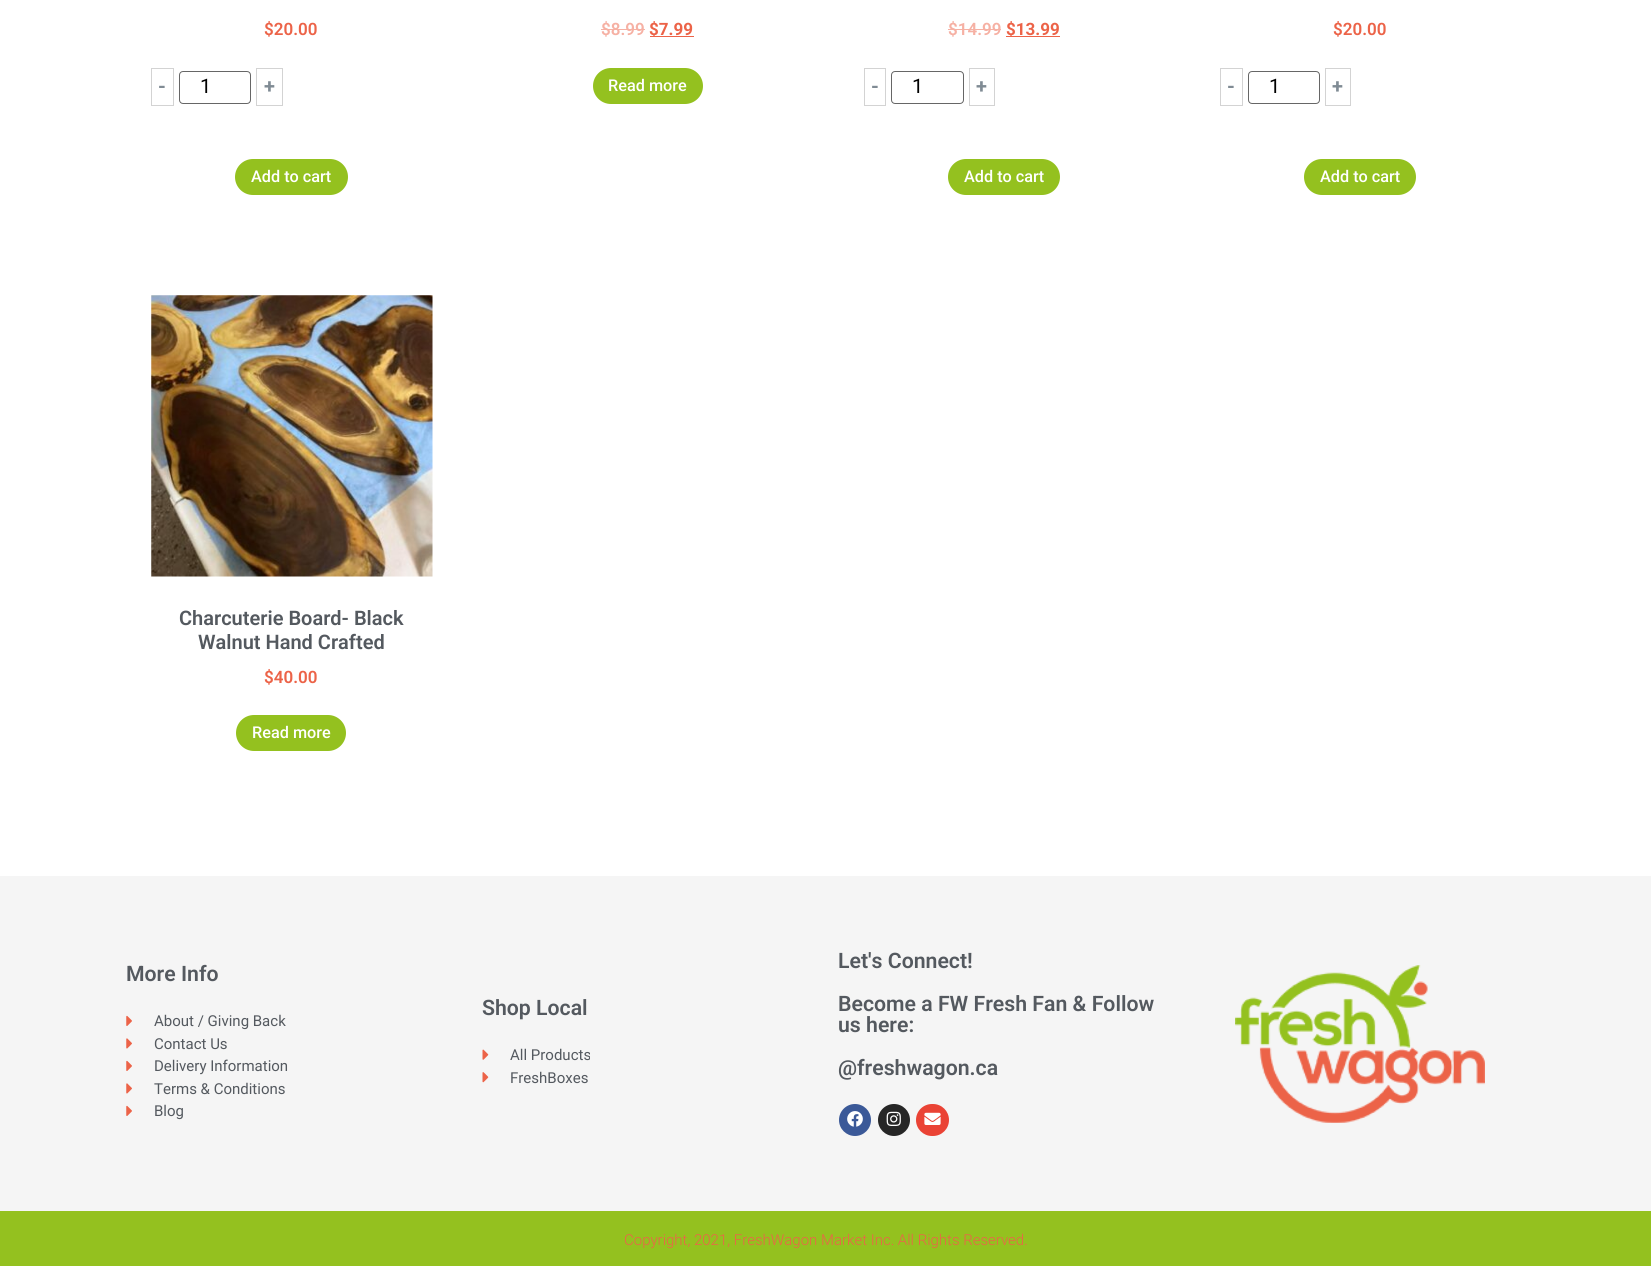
#include <cairo/cairo.h>
#include <math.h>
#include <stddef.h>

typedef struct { double x, y; const char *s; } line_t;
static cairo_t *cr;

static void rgb(unsigned color)
{
	cairo_set_source_rgb(cr, (color >> 16) / 255.0, (color >> 8 & 255) / 255.0, (color & 255) / 255.0);
}

static void rrect(double x, double y, double w, double h, double r)
{
	cairo_new_sub_path(cr);
	cairo_arc(cr, x + w - r, y + h - r, r, 0, M_PI / 2);
	cairo_arc(cr, x + r, y + h - r, r, M_PI / 2, M_PI);
	cairo_arc(cr, x + r, y + r, r, M_PI, 1.5 * M_PI);
	cairo_arc(cr, x + w - r, y + r, r, 1.5 * M_PI, 2 * M_PI);
	cairo_close_path(cr);
}

static void image(const char *path, double x, double y, double w, double h)
{
	cairo_surface_t *image = cairo_image_surface_create_from_png(path);
	cairo_save(cr);
	cairo_set_source_surface(cr, image, x, y);
	cairo_rectangle(cr, x, y, w, h);
	cairo_fill(cr);
	cairo_restore(cr);
	cairo_surface_destroy(image);
}

int main(void) {
	cairo_surface_t *surface = cairo_image_surface_create(CAIRO_FORMAT_RGB24, 1651, 1266);
	cr = cairo_create(surface);
	cairo_font_options_t *options = cairo_font_options_create();
	cairo_font_options_set_hint_metrics(options, CAIRO_HINT_METRICS_OFF);
	cairo_font_options_set_hint_style(options, CAIRO_HINT_STYLE_NONE);
	cairo_set_font_options(cr, options);
	cairo_set_miter_limit(cr, 4);
	rgb(0xffffff);
	cairo_paint(cr);
	cairo_rectangle(cr, 151.5, 68.5, 22, 37);
	rgb(0xd3d3d3);
	cairo_set_line_width(cr, 1);
	cairo_stroke(cr);
	rrect(179.5, 71.5, 71, 32, 3.5);
	rgb(0x666666);
	cairo_stroke(cr);
	cairo_rectangle(cr, 256.5, 68.5, 26, 37);
	rgb(0xd3d3d3);
	cairo_stroke(cr);
	rgb(0x94c11f);
	rrect(235, 159, 113, 36, 18);
	cairo_fill(cr);
	rgb(0xf6b1a4);
	cairo_rectangle(cr, 601, 29, 44, 1);
	cairo_fill(cr);
	rgb(0xec6348);
	cairo_rectangle(cr, 650, 36, 44, 1);
	cairo_fill(cr);
	rgb(0x94c11f);
	rrect(593, 68, 110, 36, 18);
	cairo_fill(cr);
	rgb(0xf6b1a4);
	cairo_rectangle(cr, 948, 29, 53, 1);
	cairo_fill(cr);
	rgb(0xec6348);
	cairo_rectangle(cr, 1006, 36, 54, 1);
	cairo_fill(cr);
	cairo_rectangle(cr, 864.5, 68.5, 21, 37);
	rgb(0xd3d3d3);
	cairo_stroke(cr);
	rrect(891.5, 71.5, 72, 32, 3.5);
	rgb(0x666666);
	cairo_stroke(cr);
	cairo_rectangle(cr, 969.5, 68.5, 25, 37);
	rgb(0xd3d3d3);
	cairo_stroke(cr);
	rgb(0x94c11f);
	rrect(948, 159, 112, 36, 18);
	cairo_fill(cr);
	cairo_rectangle(cr, 1220.5, 68.5, 22, 37);
	rgb(0xd3d3d3);
	cairo_stroke(cr);
	rrect(1248.5, 71.5, 71, 32, 3.5);
	rgb(0x666666);
	cairo_stroke(cr);
	cairo_rectangle(cr, 1325.5, 68.5, 25, 37);
	rgb(0xd3d3d3);
	cairo_stroke(cr);
	rgb(0x94c11f);
	rrect(1304, 159, 112, 36, 18);
	cairo_fill(cr);
	image("img/1.png", 151, 295, 282, 282);
	rrect(236, 715, 110, 36, 18);
	cairo_fill(cr);
	rgb(0xf5f5f5);
	cairo_rectangle(cr, 0, 876, 1651, 335);
	cairo_fill(cr);
	image("img/2.png", 126, 1015, 6, 11);
	image("img/3.png", 126, 1038, 6, 11);
	image("img/2.png", 126, 1060, 6, 11);
	image("img/3.png", 126, 1083, 6, 11);
	image("img/2.png", 126, 1105, 6, 11);
	image("img/4.png", 482, 1049, 7, 11);
	image("img/5.png", 482, 1072, 7, 11);
	rgb(0x3b5998);
	cairo_arc(cr, 855, 1120, 16, 0, 2 * M_PI);
	cairo_fill(cr);
	image("img/6.png", 847, 1111, 16, 16);
	rgb(0x262626);
	cairo_arc(cr, 894, 1120, 16, 0, 2 * M_PI);
	cairo_fill(cr);
	image("img/7.png", 886, 1111, 15, 15);
	rgb(0xea4335);
	rrect(916, 1104, 33, 32, 16);
	cairo_fill(cr);
	image("img/8.png", 924, 1112, 17, 13);
	image("img/9.png", 1235, 965, 250, 158);
	rgb(0x94c11f);
	cairo_rectangle(cr, 0, 1211, 1651, 55);
	cairo_fill(cr);
	cairo_select_font_face(cr, "Roboto SemiBold", CAIRO_FONT_SLANT_NORMAL, CAIRO_FONT_WEIGHT_NORMAL);
	cairo_set_font_size(cr, 17);
	rgb(0xec6348);
	cairo_move_to(cr, 264, 35);
	cairo_show_text(cr, "$20.00");
	cairo_select_font_face(cr, "Roboto", CAIRO_FONT_SLANT_NORMAL, CAIRO_FONT_WEIGHT_BOLD);
	cairo_set_font_size(cr, 20);
	rgb(0x808b94);
	cairo_move_to(cr, 158, 93);
	cairo_show_text(cr, "-");
	cairo_select_font_face(cr, "Roboto", CAIRO_FONT_SLANT_NORMAL, CAIRO_FONT_WEIGHT_NORMAL);
	rgb(0x000000);
	cairo_move_to(cr, 200, 93);
	cairo_show_text(cr, "1");
	cairo_select_font_face(cr, "Roboto", CAIRO_FONT_SLANT_NORMAL, CAIRO_FONT_WEIGHT_BOLD);
	rgb(0x808b94);
	cairo_move_to(cr, 264, 93);
	cairo_show_text(cr, "+");
	cairo_select_font_face(cr, "Roboto Medium", CAIRO_FONT_SLANT_NORMAL, CAIRO_FONT_WEIGHT_NORMAL);
	cairo_set_font_size(cr, 16.25);
	rgb(0xffffff);
	cairo_move_to(cr, 251, 182);
	cairo_show_text(cr, "Add to cart");
	cairo_select_font_face(cr, "Roboto SemiBold", CAIRO_FONT_SLANT_NORMAL, CAIRO_FONT_WEIGHT_NORMAL);
	cairo_set_font_size(cr, 17);
	rgb(0xf6b1a4);
	cairo_move_to(cr, 601, 35);
	cairo_show_text(cr, "$8.99");
	cairo_select_font_face(cr, "Roboto", CAIRO_FONT_SLANT_NORMAL, CAIRO_FONT_WEIGHT_BOLD);
	rgb(0xec6348);
	cairo_move_to(cr, 649, 35);
	cairo_show_text(cr, "$7.99");
	cairo_select_font_face(cr, "Roboto Medium", CAIRO_FONT_SLANT_NORMAL, CAIRO_FONT_WEIGHT_NORMAL);
	cairo_set_font_size(cr, 16.25);
	rgb(0xffffff);
	cairo_move_to(cr, 608, 91);
	cairo_show_text(cr, "Read more");
	cairo_select_font_face(cr, "Roboto SemiBold", CAIRO_FONT_SLANT_NORMAL, CAIRO_FONT_WEIGHT_NORMAL);
	cairo_set_font_size(cr, 17);
	rgb(0xf6b1a4);
	cairo_move_to(cr, 948, 35);
	cairo_show_text(cr, "$14.99");
	cairo_select_font_face(cr, "Roboto", CAIRO_FONT_SLANT_NORMAL, CAIRO_FONT_WEIGHT_BOLD);
	rgb(0xec6348);
	cairo_move_to(cr, 1006, 35);
	cairo_show_text(cr, "$13.99");
	cairo_set_font_size(cr, 20);
	rgb(0x808b94);
	cairo_move_to(cr, 871, 93);
	cairo_show_text(cr, "-");
	cairo_select_font_face(cr, "Roboto", CAIRO_FONT_SLANT_NORMAL, CAIRO_FONT_WEIGHT_NORMAL);
	rgb(0x000000);
	cairo_move_to(cr, 912, 93);
	cairo_show_text(cr, "1");
	cairo_select_font_face(cr, "Roboto", CAIRO_FONT_SLANT_NORMAL, CAIRO_FONT_WEIGHT_BOLD);
	rgb(0x808b94);
	cairo_move_to(cr, 976, 93);
	cairo_show_text(cr, "+");
	cairo_select_font_face(cr, "Roboto Medium", CAIRO_FONT_SLANT_NORMAL, CAIRO_FONT_WEIGHT_NORMAL);
	cairo_set_font_size(cr, 16.25);
	rgb(0xffffff);
	cairo_move_to(cr, 964, 182);
	cairo_show_text(cr, "Add to cart");
	cairo_select_font_face(cr, "Roboto SemiBold", CAIRO_FONT_SLANT_NORMAL, CAIRO_FONT_WEIGHT_NORMAL);
	cairo_set_font_size(cr, 17);
	rgb(0xec6348);
	cairo_move_to(cr, 1333, 35);
	cairo_show_text(cr, "$20.00");
	cairo_select_font_face(cr, "Roboto", CAIRO_FONT_SLANT_NORMAL, CAIRO_FONT_WEIGHT_BOLD);
	cairo_set_font_size(cr, 20);
	rgb(0x808b94);
	cairo_move_to(cr, 1227, 93);
	cairo_show_text(cr, "-");
	cairo_select_font_face(cr, "Roboto", CAIRO_FONT_SLANT_NORMAL, CAIRO_FONT_WEIGHT_NORMAL);
	rgb(0x000000);
	cairo_move_to(cr, 1269, 93);
	cairo_show_text(cr, "1");
	cairo_select_font_face(cr, "Roboto", CAIRO_FONT_SLANT_NORMAL, CAIRO_FONT_WEIGHT_BOLD);
	rgb(0x808b94);
	cairo_move_to(cr, 1332, 93);
	cairo_show_text(cr, "+");
	cairo_select_font_face(cr, "Roboto Medium", CAIRO_FONT_SLANT_NORMAL, CAIRO_FONT_WEIGHT_NORMAL);
	cairo_set_font_size(cr, 16.25);
	rgb(0xffffff);
	cairo_move_to(cr, 1320, 182);
	cairo_show_text(cr, "Add to cart");
	cairo_select_font_face(cr, "Roboto SemiBold", CAIRO_FONT_SLANT_NORMAL, CAIRO_FONT_WEIGHT_NORMAL);
	cairo_set_font_size(cr, 20);
	rgb(0x54595f);
	cairo_move_to(cr, 179, 625);
	cairo_show_text(cr, "Charcuterie Board- Black");
	cairo_move_to(cr, 198, 649);
	cairo_show_text(cr, "Walnut Hand Crafted");
	cairo_set_font_size(cr, 17);
	rgb(0xec6348);
	cairo_move_to(cr, 264, 683);
	cairo_show_text(cr, "$40.00");
	cairo_select_font_face(cr, "Roboto Medium", CAIRO_FONT_SLANT_NORMAL, CAIRO_FONT_WEIGHT_NORMAL);
	cairo_set_font_size(cr, 16.25);
	rgb(0xffffff);
	cairo_move_to(cr, 252, 738);
	cairo_show_text(cr, "Read more");
	cairo_select_font_face(cr, "Roboto SemiBold", CAIRO_FONT_SLANT_NORMAL, CAIRO_FONT_WEIGHT_NORMAL);
	cairo_set_font_size(cr, 21.25);
	rgb(0x54595f);
	cairo_move_to(cr, 126, 981);
	cairo_show_text(cr, "More Info");
	cairo_select_font_face(cr, "Roboto", CAIRO_FONT_SLANT_NORMAL, CAIRO_FONT_WEIGHT_NORMAL);
	cairo_set_font_size(cr, 15);
	{
		static const line_t items[] = {
			{154, 1026, "About / Giving Back"},
			{154, 1049, "Contact Us"},
			{154, 1071, "Delivery Information"},
			{154, 1094, "Terms & Conditions"},
			{154, 1116, "Blog"},
		};
		for (size_t i = 0; i < sizeof items / sizeof *items; i++) {
			cairo_move_to(cr, items[i].x, items[i].y);
			cairo_show_text(cr, items[i].s);
		}
	}
	cairo_select_font_face(cr, "Roboto SemiBold", CAIRO_FONT_SLANT_NORMAL, CAIRO_FONT_WEIGHT_NORMAL);
	cairo_set_font_size(cr, 21.25);
	cairo_move_to(cr, 482, 1015);
	cairo_show_text(cr, "Shop Local");
	cairo_select_font_face(cr, "Roboto", CAIRO_FONT_SLANT_NORMAL, CAIRO_FONT_WEIGHT_NORMAL);
	cairo_set_font_size(cr, 15);
	cairo_move_to(cr, 510, 1060);
	cairo_show_text(cr, "All Products");
	cairo_move_to(cr, 510, 1083);
	cairo_show_text(cr, "FreshBoxes");
	cairo_select_font_face(cr, "Roboto SemiBold", CAIRO_FONT_SLANT_NORMAL, CAIRO_FONT_WEIGHT_NORMAL);
	cairo_set_font_size(cr, 21.25);
	{
		static const line_t items[] = {
			{838, 968, "Let's Connect!"},
			{838, 1011, "Become a FW Fresh Fan & Follow"},
			{838, 1032, "us here:"},
			{838, 1075, "@freshwagon.ca"},
		};
		for (size_t i = 0; i < sizeof items / sizeof *items; i++) {
			cairo_move_to(cr, items[i].x, items[i].y);
			cairo_show_text(cr, items[i].s);
		}
	}
	cairo_select_font_face(cr, "Roboto Light", CAIRO_FONT_SLANT_NORMAL, CAIRO_FONT_WEIGHT_NORMAL);
	cairo_set_font_size(cr, 15);
	rgb(0xec6348);
	cairo_move_to(cr, 624, 1245);
	cairo_show_text(cr, "Copyright, 2021, FreshWagon Market Inc. All Rights Reserved.");
	cairo_surface_write_to_png(surface, "page.png");
	cairo_font_options_destroy(options);
	cairo_destroy(cr);
	cairo_surface_destroy(surface);
	return 0;
}
